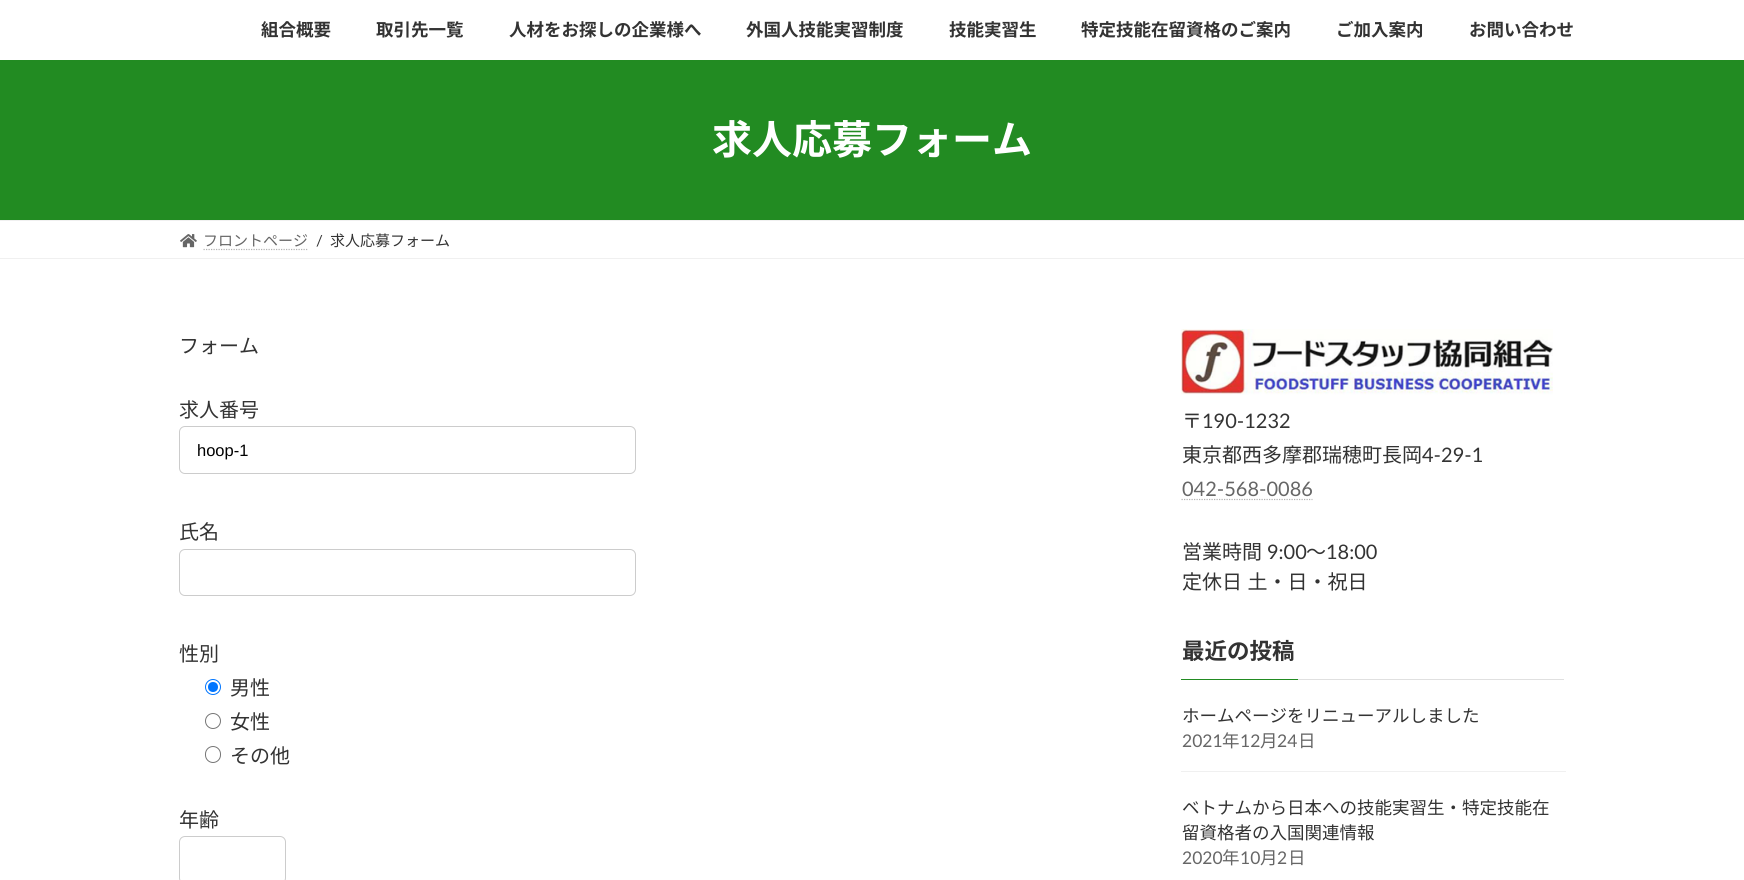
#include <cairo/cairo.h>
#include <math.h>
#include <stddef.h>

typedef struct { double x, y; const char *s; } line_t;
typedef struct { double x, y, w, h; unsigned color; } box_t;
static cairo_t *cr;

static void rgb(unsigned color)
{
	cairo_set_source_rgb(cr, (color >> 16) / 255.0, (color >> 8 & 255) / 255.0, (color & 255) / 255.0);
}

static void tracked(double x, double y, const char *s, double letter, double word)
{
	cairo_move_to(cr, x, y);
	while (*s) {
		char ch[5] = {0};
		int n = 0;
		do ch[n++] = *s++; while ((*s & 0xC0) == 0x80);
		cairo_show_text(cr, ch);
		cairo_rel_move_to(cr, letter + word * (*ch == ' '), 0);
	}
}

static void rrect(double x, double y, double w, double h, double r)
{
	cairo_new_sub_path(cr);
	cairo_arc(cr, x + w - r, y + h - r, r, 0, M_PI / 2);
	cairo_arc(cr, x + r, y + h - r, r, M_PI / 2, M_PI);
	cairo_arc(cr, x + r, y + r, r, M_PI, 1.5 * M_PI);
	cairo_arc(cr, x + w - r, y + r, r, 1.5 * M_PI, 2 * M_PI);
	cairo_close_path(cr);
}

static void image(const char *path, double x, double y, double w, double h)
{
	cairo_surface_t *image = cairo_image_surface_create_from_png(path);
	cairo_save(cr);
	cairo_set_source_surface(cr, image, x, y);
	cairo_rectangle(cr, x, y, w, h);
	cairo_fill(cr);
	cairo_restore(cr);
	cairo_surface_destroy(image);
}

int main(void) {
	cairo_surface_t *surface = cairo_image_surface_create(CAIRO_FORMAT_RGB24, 1744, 880);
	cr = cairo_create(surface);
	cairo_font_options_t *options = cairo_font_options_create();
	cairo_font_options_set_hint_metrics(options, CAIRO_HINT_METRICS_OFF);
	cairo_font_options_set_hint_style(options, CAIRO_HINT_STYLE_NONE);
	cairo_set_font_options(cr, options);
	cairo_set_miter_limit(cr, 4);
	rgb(0xffffff);
	cairo_paint(cr);
	{
		static const box_t items[] = {
			{0, 60, 1744, 160, 0x228b22},
			{0, 220, 1744, 1, 0xf0f0f0},
			{0, 258, 1744, 1, 0xf0f0f0},
		};
		for (size_t i = 0; i < sizeof items / sizeof *items; i++) {
			rgb(items[i].color);
			cairo_rectangle(cr, items[i].x, items[i].y, items[i].w, items[i].h);
			cairo_fill(cr);
		}
	}
	image("img/1.png", 180, 234, 17, 14);
	cairo_new_path(cr);
	cairo_move_to(cr, 203.5, 249.5);
	cairo_line_to(cr, 308.5, 249.5);
	rgb(0xb3b3b3);
	cairo_set_line_width(cr, 1.2);
	cairo_set_dash(cr, (double[]){1.25, 1.25}, 2, 0);
	cairo_stroke(cr);
	rrect(179.5, 426.5, 456, 47, 5.5);
	rgb(0xcccccc);
	cairo_set_line_width(cr, 1);
	cairo_set_dash(cr, NULL, 0, 0);
	cairo_stroke(cr);
	rrect(179.5, 549.5, 456, 46, 5.5);
	cairo_stroke(cr);
	cairo_arc(cr, 213, 687, 7.5, 0, 2 * M_PI);
	rgb(0x0075ff);
	cairo_stroke(cr);
	cairo_arc(cr, 213, 687, 5, 0, 2 * M_PI);
	cairo_fill(cr);
	cairo_arc(cr, 213, 721, 7.5, 0, 2 * M_PI);
	rgb(0x767676);
	cairo_stroke(cr);
	rrect(205.5, 746.5, 15, 16, 7.5);
	cairo_stroke(cr);
	rrect(179.5, 836.5, 106, 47, 5.5);
	rgb(0xcccccc);
	cairo_stroke(cr);
	image("img/2.png", 1181, 329, 372, 66);
	cairo_new_path(cr);
	cairo_move_to(cr, 1181.5, 499.5);
	cairo_line_to(cr, 1312.5, 499.5);
	rgb(0xb3b3b3);
	cairo_set_line_width(cr, 1.2);
	cairo_set_dash(cr, (double[]){1.25, 1.25}, 2, 0);
	cairo_stroke(cr);
	{
		static const box_t items[] = {
			{1298, 679, 266, 1, 0xe0e0e0},
			{1181, 679, 117, 1, 0x228b22},
			{1181, 771, 385, 1, 0xf0f0f0},
		};
		for (size_t i = 0; i < sizeof items / sizeof *items; i++) {
			rgb(items[i].color);
			cairo_rectangle(cr, items[i].x, items[i].y, items[i].w, items[i].h);
			cairo_fill(cr);
		}
	}
	cairo_select_font_face(cr, "Noto Sans JP", CAIRO_FONT_SLANT_NORMAL, CAIRO_FONT_WEIGHT_BOLD);
	cairo_set_font_size(cr, 17.5);
	rgb(0x333333);
	{
		static const line_t items[] = {
			{261, 36, "組合概要"},
			{376, 36, "取引先一覧"},
			{509, 36, "人材をお探しの企業様へ"},
			{746, 36, "外国人技能実習制度"},
			{949, 36, "技能実習生"},
			{1081, 36, "特定技能在留資格のご案内"},
			{1336, 36, "ご加入案内"},
			{1469, 36, "お問い合わせ"},
		};
		for (size_t i = 0; i < sizeof items / sizeof *items; i++) {
			cairo_move_to(cr, items[i].x, items[i].y);
			cairo_show_text(cr, items[i].s);
		}
	}
	cairo_set_font_size(cr, 40);
	rgb(0xffffff);
	cairo_move_to(cr, 712, 154);
	cairo_show_text(cr, "求人応募フォーム");
	cairo_select_font_face(cr, "Noto Sans JP", CAIRO_FONT_SLANT_NORMAL, CAIRO_FONT_WEIGHT_NORMAL);
	cairo_set_font_size(cr, 15);
	rgb(0x666666);
	cairo_move_to(cr, 203, 246);
	cairo_show_text(cr, "フロントページ");
	cairo_select_font_face(cr, "Lato", CAIRO_FONT_SLANT_NORMAL, CAIRO_FONT_WEIGHT_NORMAL);
	rgb(0x333333);
	cairo_move_to(cr, 316, 246);
	cairo_show_text(cr, "/");
	cairo_select_font_face(cr, "Noto Sans JP", CAIRO_FONT_SLANT_NORMAL, CAIRO_FONT_WEIGHT_NORMAL);
	cairo_move_to(cr, 330, 246);
	cairo_show_text(cr, "求人応募フォーム");
	cairo_set_font_size(cr, 20);
	cairo_move_to(cr, 179, 353);
	cairo_show_text(cr, "フォーム");
	cairo_move_to(cr, 179, 417);
	cairo_show_text(cr, "求人番号");
	cairo_select_font_face(cr, "Liberation Sans", CAIRO_FONT_SLANT_NORMAL, CAIRO_FONT_WEIGHT_NORMAL);
	cairo_set_font_size(cr, 16.5);
	rgb(0x000000);
	cairo_move_to(cr, 197, 456);
	cairo_show_text(cr, "hoop-1");
	cairo_select_font_face(cr, "Noto Sans JP", CAIRO_FONT_SLANT_NORMAL, CAIRO_FONT_WEIGHT_NORMAL);
	cairo_set_font_size(cr, 20);
	rgb(0x333333);
	{
		static const line_t items[] = {
			{179, 539, "氏名"},
			{179, 661, "性別"},
			{230, 695, "男性"},
			{230, 729, "女性"},
			{230, 763, "その他"},
			{179, 827, "年齢"},
			{1182, 428, "〒"},
		};
		for (size_t i = 0; i < sizeof items / sizeof *items; i++) {
			cairo_move_to(cr, items[i].x, items[i].y);
			cairo_show_text(cr, items[i].s);
		}
	}
	cairo_select_font_face(cr, "Lato", CAIRO_FONT_SLANT_NORMAL, CAIRO_FONT_WEIGHT_NORMAL);
	cairo_move_to(cr, 1202, 428);
	cairo_show_text(cr, "190-1232");
	cairo_select_font_face(cr, "Noto Sans JP", CAIRO_FONT_SLANT_NORMAL, CAIRO_FONT_WEIGHT_NORMAL);
	cairo_move_to(cr, 1182, 462);
	cairo_show_text(cr, "東京都西多摩郡瑞穂町長岡");
	cairo_select_font_face(cr, "Lato", CAIRO_FONT_SLANT_NORMAL, CAIRO_FONT_WEIGHT_NORMAL);
	cairo_move_to(cr, 1422, 462);
	cairo_show_text(cr, "4-29-1");
	rgb(0x666666);
	cairo_move_to(cr, 1182, 496);
	cairo_show_text(cr, "042-568-0086");
	cairo_select_font_face(cr, "Noto Sans JP", CAIRO_FONT_SLANT_NORMAL, CAIRO_FONT_WEIGHT_NORMAL);
	rgb(0x333333);
	cairo_move_to(cr, 1182, 559);
	cairo_show_text(cr, "営業時間");
	cairo_select_font_face(cr, "Lato", CAIRO_FONT_SLANT_NORMAL, CAIRO_FONT_WEIGHT_NORMAL);
	cairo_move_to(cr, 1267, 559);
	cairo_show_text(cr, "9:00");
	cairo_select_font_face(cr, "Noto Sans JP", CAIRO_FONT_SLANT_NORMAL, CAIRO_FONT_WEIGHT_NORMAL);
	cairo_move_to(cr, 1306, 559);
	cairo_show_text(cr, "～");
	cairo_select_font_face(cr, "Lato", CAIRO_FONT_SLANT_NORMAL, CAIRO_FONT_WEIGHT_NORMAL);
	cairo_move_to(cr, 1326, 559);
	cairo_show_text(cr, "18:00");
	cairo_select_font_face(cr, "Noto Sans JP", CAIRO_FONT_SLANT_NORMAL, CAIRO_FONT_WEIGHT_NORMAL);
	tracked(1182, 589, "定休日 土・日・祝日", 0, 1);
	cairo_select_font_face(cr, "Noto Sans JP", CAIRO_FONT_SLANT_NORMAL, CAIRO_FONT_WEIGHT_BOLD);
	cairo_set_font_size(cr, 22.5);
	cairo_move_to(cr, 1182, 659);
	cairo_show_text(cr, "最近の投稿");
	cairo_select_font_face(cr, "Noto Sans JP", CAIRO_FONT_SLANT_NORMAL, CAIRO_FONT_WEIGHT_NORMAL);
	cairo_set_font_size(cr, 17.5);
	cairo_move_to(cr, 1182, 722);
	cairo_show_text(cr, "ホームページをリニューアルしました");
	cairo_select_font_face(cr, "Lato", CAIRO_FONT_SLANT_NORMAL, CAIRO_FONT_WEIGHT_NORMAL);
	rgb(0x666666);
	cairo_move_to(cr, 1182, 747);
	cairo_show_text(cr, "2021");
	cairo_select_font_face(cr, "Noto Sans JP", CAIRO_FONT_SLANT_NORMAL, CAIRO_FONT_WEIGHT_NORMAL);
	cairo_move_to(cr, 1222, 747);
	cairo_show_text(cr, "年");
	cairo_select_font_face(cr, "Lato", CAIRO_FONT_SLANT_NORMAL, CAIRO_FONT_WEIGHT_NORMAL);
	cairo_move_to(cr, 1240, 747);
	cairo_show_text(cr, "12");
	cairo_select_font_face(cr, "Noto Sans JP", CAIRO_FONT_SLANT_NORMAL, CAIRO_FONT_WEIGHT_NORMAL);
	cairo_move_to(cr, 1260, 747);
	cairo_show_text(cr, "月");
	cairo_select_font_face(cr, "Lato", CAIRO_FONT_SLANT_NORMAL, CAIRO_FONT_WEIGHT_NORMAL);
	cairo_move_to(cr, 1277, 747);
	cairo_show_text(cr, "24");
	cairo_select_font_face(cr, "Noto Sans JP", CAIRO_FONT_SLANT_NORMAL, CAIRO_FONT_WEIGHT_NORMAL);
	cairo_move_to(cr, 1298, 747);
	cairo_show_text(cr, "日");
	rgb(0x333333);
	cairo_move_to(cr, 1182, 814);
	cairo_show_text(cr, "ベトナムから日本への技能実習生・特定技能在");
	cairo_move_to(cr, 1182, 839);
	cairo_show_text(cr, "留資格者の入国関連情報");
	cairo_select_font_face(cr, "Lato", CAIRO_FONT_SLANT_NORMAL, CAIRO_FONT_WEIGHT_NORMAL);
	rgb(0x666666);
	cairo_move_to(cr, 1182, 864);
	cairo_show_text(cr, "2020");
	cairo_select_font_face(cr, "Noto Sans JP", CAIRO_FONT_SLANT_NORMAL, CAIRO_FONT_WEIGHT_NORMAL);
	cairo_move_to(cr, 1222, 864);
	cairo_show_text(cr, "年");
	cairo_select_font_face(cr, "Lato", CAIRO_FONT_SLANT_NORMAL, CAIRO_FONT_WEIGHT_NORMAL);
	cairo_move_to(cr, 1240, 864);
	cairo_show_text(cr, "10");
	cairo_select_font_face(cr, "Noto Sans JP", CAIRO_FONT_SLANT_NORMAL, CAIRO_FONT_WEIGHT_NORMAL);
	cairo_move_to(cr, 1260, 864);
	cairo_show_text(cr, "月");
	cairo_select_font_face(cr, "Lato", CAIRO_FONT_SLANT_NORMAL, CAIRO_FONT_WEIGHT_NORMAL);
	cairo_move_to(cr, 1277, 864);
	cairo_show_text(cr, "2");
	cairo_select_font_face(cr, "Noto Sans JP", CAIRO_FONT_SLANT_NORMAL, CAIRO_FONT_WEIGHT_NORMAL);
	cairo_move_to(cr, 1288, 864);
	cairo_show_text(cr, "日");
	cairo_surface_write_to_png(surface, "page.png");
	cairo_font_options_destroy(options);
	cairo_destroy(cr);
	cairo_surface_destroy(surface);
	return 0;
}
